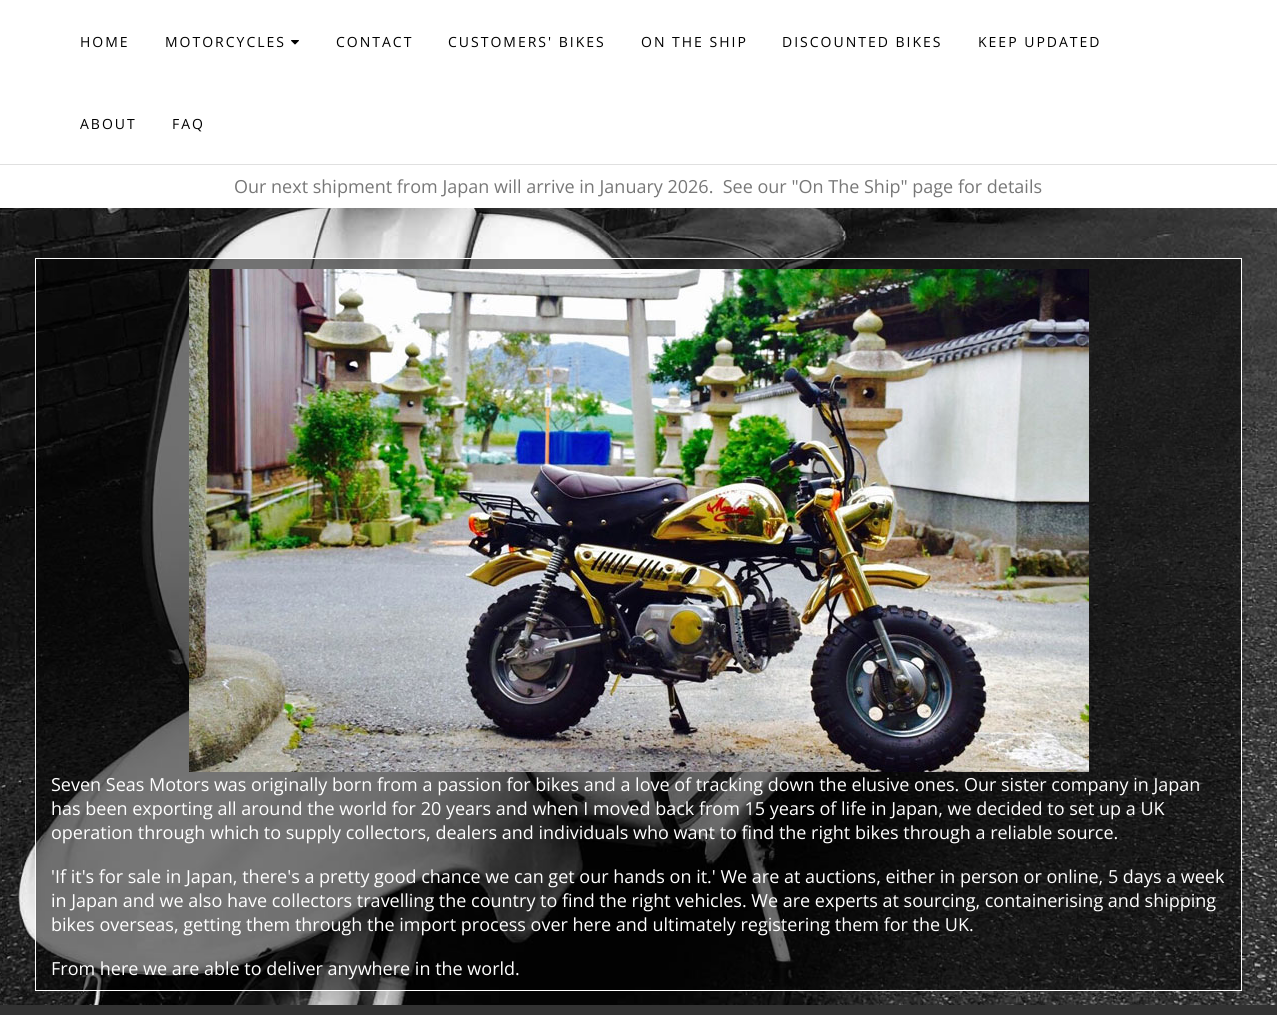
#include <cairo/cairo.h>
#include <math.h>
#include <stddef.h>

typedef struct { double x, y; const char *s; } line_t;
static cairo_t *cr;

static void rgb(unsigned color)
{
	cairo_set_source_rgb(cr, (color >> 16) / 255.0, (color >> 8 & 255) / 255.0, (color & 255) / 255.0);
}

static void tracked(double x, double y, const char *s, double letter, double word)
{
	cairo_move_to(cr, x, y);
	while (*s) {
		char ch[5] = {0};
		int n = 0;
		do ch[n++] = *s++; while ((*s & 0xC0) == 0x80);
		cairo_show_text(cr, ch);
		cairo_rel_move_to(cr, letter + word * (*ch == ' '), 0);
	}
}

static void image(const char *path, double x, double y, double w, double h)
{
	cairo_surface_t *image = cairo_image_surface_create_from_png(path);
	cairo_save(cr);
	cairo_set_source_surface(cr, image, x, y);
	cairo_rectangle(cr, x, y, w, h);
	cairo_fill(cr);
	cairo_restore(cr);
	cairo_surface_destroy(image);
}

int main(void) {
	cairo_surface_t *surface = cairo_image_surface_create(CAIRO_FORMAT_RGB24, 1277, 1015);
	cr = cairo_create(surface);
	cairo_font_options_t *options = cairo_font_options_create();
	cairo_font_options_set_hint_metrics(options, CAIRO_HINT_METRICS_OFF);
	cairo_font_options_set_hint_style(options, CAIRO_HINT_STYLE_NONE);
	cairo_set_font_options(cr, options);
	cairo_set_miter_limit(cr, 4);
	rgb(0xffffff);
	cairo_paint(cr);
	rgb(0xe0e0e0);
	cairo_rectangle(cr, 0, 164, 1277, 1);
	cairo_fill(cr);
	image("img/1.png", 291, 40, 8, 5);
	image("img/2.png", 0, 208, 1277, 797);
	cairo_set_source_rgba(cr, 0, 0, 0, 0.52);
	cairo_rectangle(cr, 35.5, 258.5, 1206, 732);
	cairo_fill_preserve(cr);
	rgb(0xffffff);
	cairo_set_line_width(cr, 1);
	cairo_stroke(cr);
	image("img/3.png", 189, 269, 900, 503);
	rgb(0x323232);
	cairo_rectangle(cr, 0, 1005, 1277, 10);
	cairo_fill(cr);
	cairo_select_font_face(cr, "Open Sans", CAIRO_FONT_SLANT_NORMAL, CAIRO_FONT_WEIGHT_NORMAL);
	cairo_set_font_size(cr, 14);
	rgb(0x000000);
	{
		static const line_t items[] = {
			{80, 47, "HOME"},
			{165, 47, "MOTORCYCLES"},
			{336, 47, "CONTACT"},
			{448, 47, "CUSTOMERS' BIKES"},
			{641, 47, "ON THE SHIP"},
			{782, 47, "DISCOUNTED BIKES"},
			{978, 47, "KEEP UPDATED"},
			{80, 129, "ABOUT"},
			{172, 129, "FAQ"},
		};
		for (size_t i = 0; i < sizeof items / sizeof *items; i++) {
			tracked(items[i].x, items[i].y, items[i].s, 2, 0);
		}
	}
	cairo_set_font_size(cr, 18);
	rgb(0x777777);
	cairo_move_to(cr, 234, 193);
	cairo_show_text(cr, "Our next shipment from Japan will arrive in January 2026.  See our \"On The Ship\" page for details");
	rgb(0xffffff);
	{
		static const line_t items[] = {
			{51, 791, "Seven Seas Motors was originally born from a passion for bikes and a love of tracking down the elusive ones. Our sister company in Japan"},
			{51, 815, "has been exporting all around the world for 20 years and when I moved back from 15 years of life in Japan, we decided to set up a UK"},
			{51, 839, "operation through which to supply collectors, dealers and individuals who want to find the right bikes through a reliable source."},
			{51, 883, "'If it's for sale in Japan, there's a pretty good chance we can get our hands on it.' We are at auctions, either in person or online, 5 days a week"},
			{51, 907, "in Japan and we also have collectors travelling the country to find the right vehicles. We are experts at sourcing, containerising and shipping"},
			{51, 931, "bikes overseas, getting them through the import process over here and ultimately registering them for the UK."},
			{51, 975, "From here we are able to deliver anywhere in the world."},
		};
		for (size_t i = 0; i < sizeof items / sizeof *items; i++) {
			cairo_move_to(cr, items[i].x, items[i].y);
			cairo_show_text(cr, items[i].s);
		}
	}
	cairo_surface_write_to_png(surface, "page.png");
	cairo_font_options_destroy(options);
	cairo_destroy(cr);
	cairo_surface_destroy(surface);
	return 0;
}
